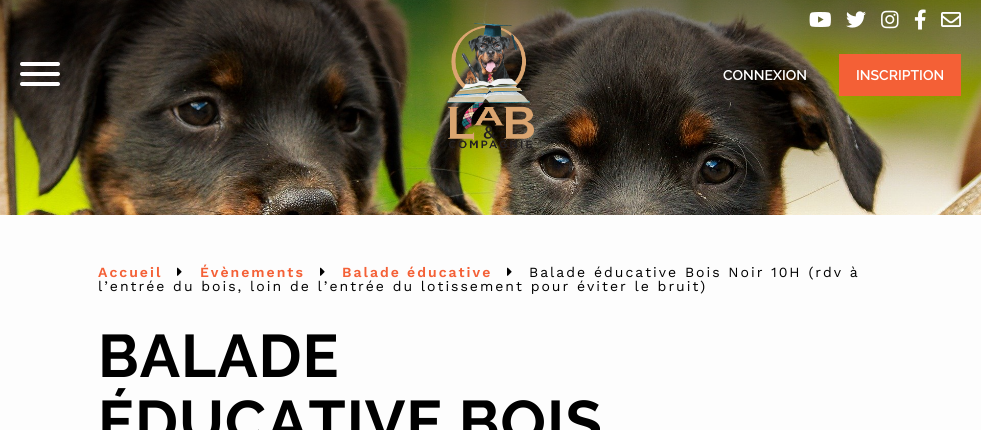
#include <cairo/cairo.h>
#include <math.h>
#include <stddef.h>

typedef struct { double x, y; const char *s; } line_t;
static cairo_t *cr;

static void rgb(unsigned color)
{
	cairo_set_source_rgb(cr, (color >> 16) / 255.0, (color >> 8 & 255) / 255.0, (color & 255) / 255.0);
}

static void tracked(double x, double y, const char *s, double letter, double word)
{
	cairo_move_to(cr, x, y);
	while (*s) {
		char ch[5] = {0};
		int n = 0;
		do ch[n++] = *s++; while ((*s & 0xC0) == 0x80);
		cairo_show_text(cr, ch);
		cairo_rel_move_to(cr, letter + word * (*ch == ' '), 0);
	}
}

static void rrect(double x, double y, double w, double h, double r)
{
	cairo_new_sub_path(cr);
	cairo_arc(cr, x + w - r, y + h - r, r, 0, M_PI / 2);
	cairo_arc(cr, x + r, y + h - r, r, M_PI / 2, M_PI);
	cairo_arc(cr, x + r, y + r, r, M_PI, 1.5 * M_PI);
	cairo_arc(cr, x + w - r, y + r, r, 1.5 * M_PI, 2 * M_PI);
	cairo_close_path(cr);
}

static void image(const char *path, double x, double y, double w, double h)
{
	cairo_surface_t *image = cairo_image_surface_create_from_png(path);
	cairo_save(cr);
	cairo_set_source_surface(cr, image, x, y);
	cairo_rectangle(cr, x, y, w, h);
	cairo_fill(cr);
	cairo_restore(cr);
	cairo_surface_destroy(image);
}

int main(void) {
	cairo_surface_t *surface = cairo_image_surface_create(CAIRO_FORMAT_RGB24, 981, 430);
	cr = cairo_create(surface);
	cairo_font_options_t *options = cairo_font_options_create();
	cairo_font_options_set_hint_metrics(options, CAIRO_HINT_METRICS_OFF);
	cairo_font_options_set_hint_style(options, CAIRO_HINT_STYLE_NONE);
	cairo_set_font_options(cr, options);
	cairo_set_miter_limit(cr, 4);
	rgb(0xfdfdfd);
	cairo_paint(cr);
	image("img/7.png", 0, 0, 981, 215);
	image("img/1.png", 809, 12, 22, 15);
	image("img/2.png", 846, 11, 20, 17);
	image("img/3.png", 881, 10, 18, 19);
	image("img/4.png", 914, 9, 12, 21);
	image("img/5.png", 941, 12, 20, 15);
	rgb(0xffffff);
	rrect(20, 72, 40, 4, 2);
	cairo_fill(cr);
	rrect(20, 62, 40, 4, 2);
	cairo_fill(cr);
	rrect(20, 82, 40, 4, 2);
	cairo_fill(cr);
	image("img/6.png", 447, 23, 87, 126);
	rgb(0xf46036);
	cairo_rectangle(cr, 839, 54, 122, 42);
	cairo_fill(cr);
	image("img/8.png", 177, 267, 5, 9);
	image("img/8.png", 320, 267, 5, 9);
	image("img/8.png", 507, 267, 5, 9);
	cairo_select_font_face(cr, "Raleway SemiBold", CAIRO_FONT_SLANT_NORMAL, CAIRO_FONT_WEIGHT_NORMAL);
	cairo_set_font_size(cr, 14);
	rgb(0xffffff);
	cairo_move_to(cr, 723, 80);
	cairo_show_text(cr, "CONNEXION");
	cairo_move_to(cr, 856, 80);
	cairo_show_text(cr, "INSCRIPTION");
	cairo_select_font_face(cr, "Work Sans SemiBold", CAIRO_FONT_SLANT_NORMAL, CAIRO_FONT_WEIGHT_NORMAL);
	rgb(0xf46036);
	{
		static const line_t items[] = {
			{98, 277, "Accueil"},
			{200, 277, "Évènements"},
			{342, 277, "Balade éducative"},
		};
		for (size_t i = 0; i < sizeof items / sizeof *items; i++) {
			tracked(items[i].x, items[i].y, items[i].s, 2, 0);
		}
	}
	cairo_select_font_face(cr, "Work Sans", CAIRO_FONT_SLANT_NORMAL, CAIRO_FONT_WEIGHT_NORMAL);
	rgb(0x000000);
	tracked(529, 277, "Balade éducative Bois Noir 10H (rdv à", 2, 0);
	tracked(98, 291, "l’entrée du bois, loin de l’entrée du lotissement pour éviter le bruit)", 2, 0);
	cairo_select_font_face(cr, "Raleway", CAIRO_FONT_SLANT_NORMAL, CAIRO_FONT_WEIGHT_BOLD);
	cairo_set_font_size(cr, 60);
	tracked(98, 377, "BALADE", 1, 0);
	tracked(98, 443, "ÉDUCATIVE BOIS", 1, 0);
	cairo_surface_write_to_png(surface, "page.png");
	cairo_font_options_destroy(options);
	cairo_destroy(cr);
	cairo_surface_destroy(surface);
	return 0;
}
